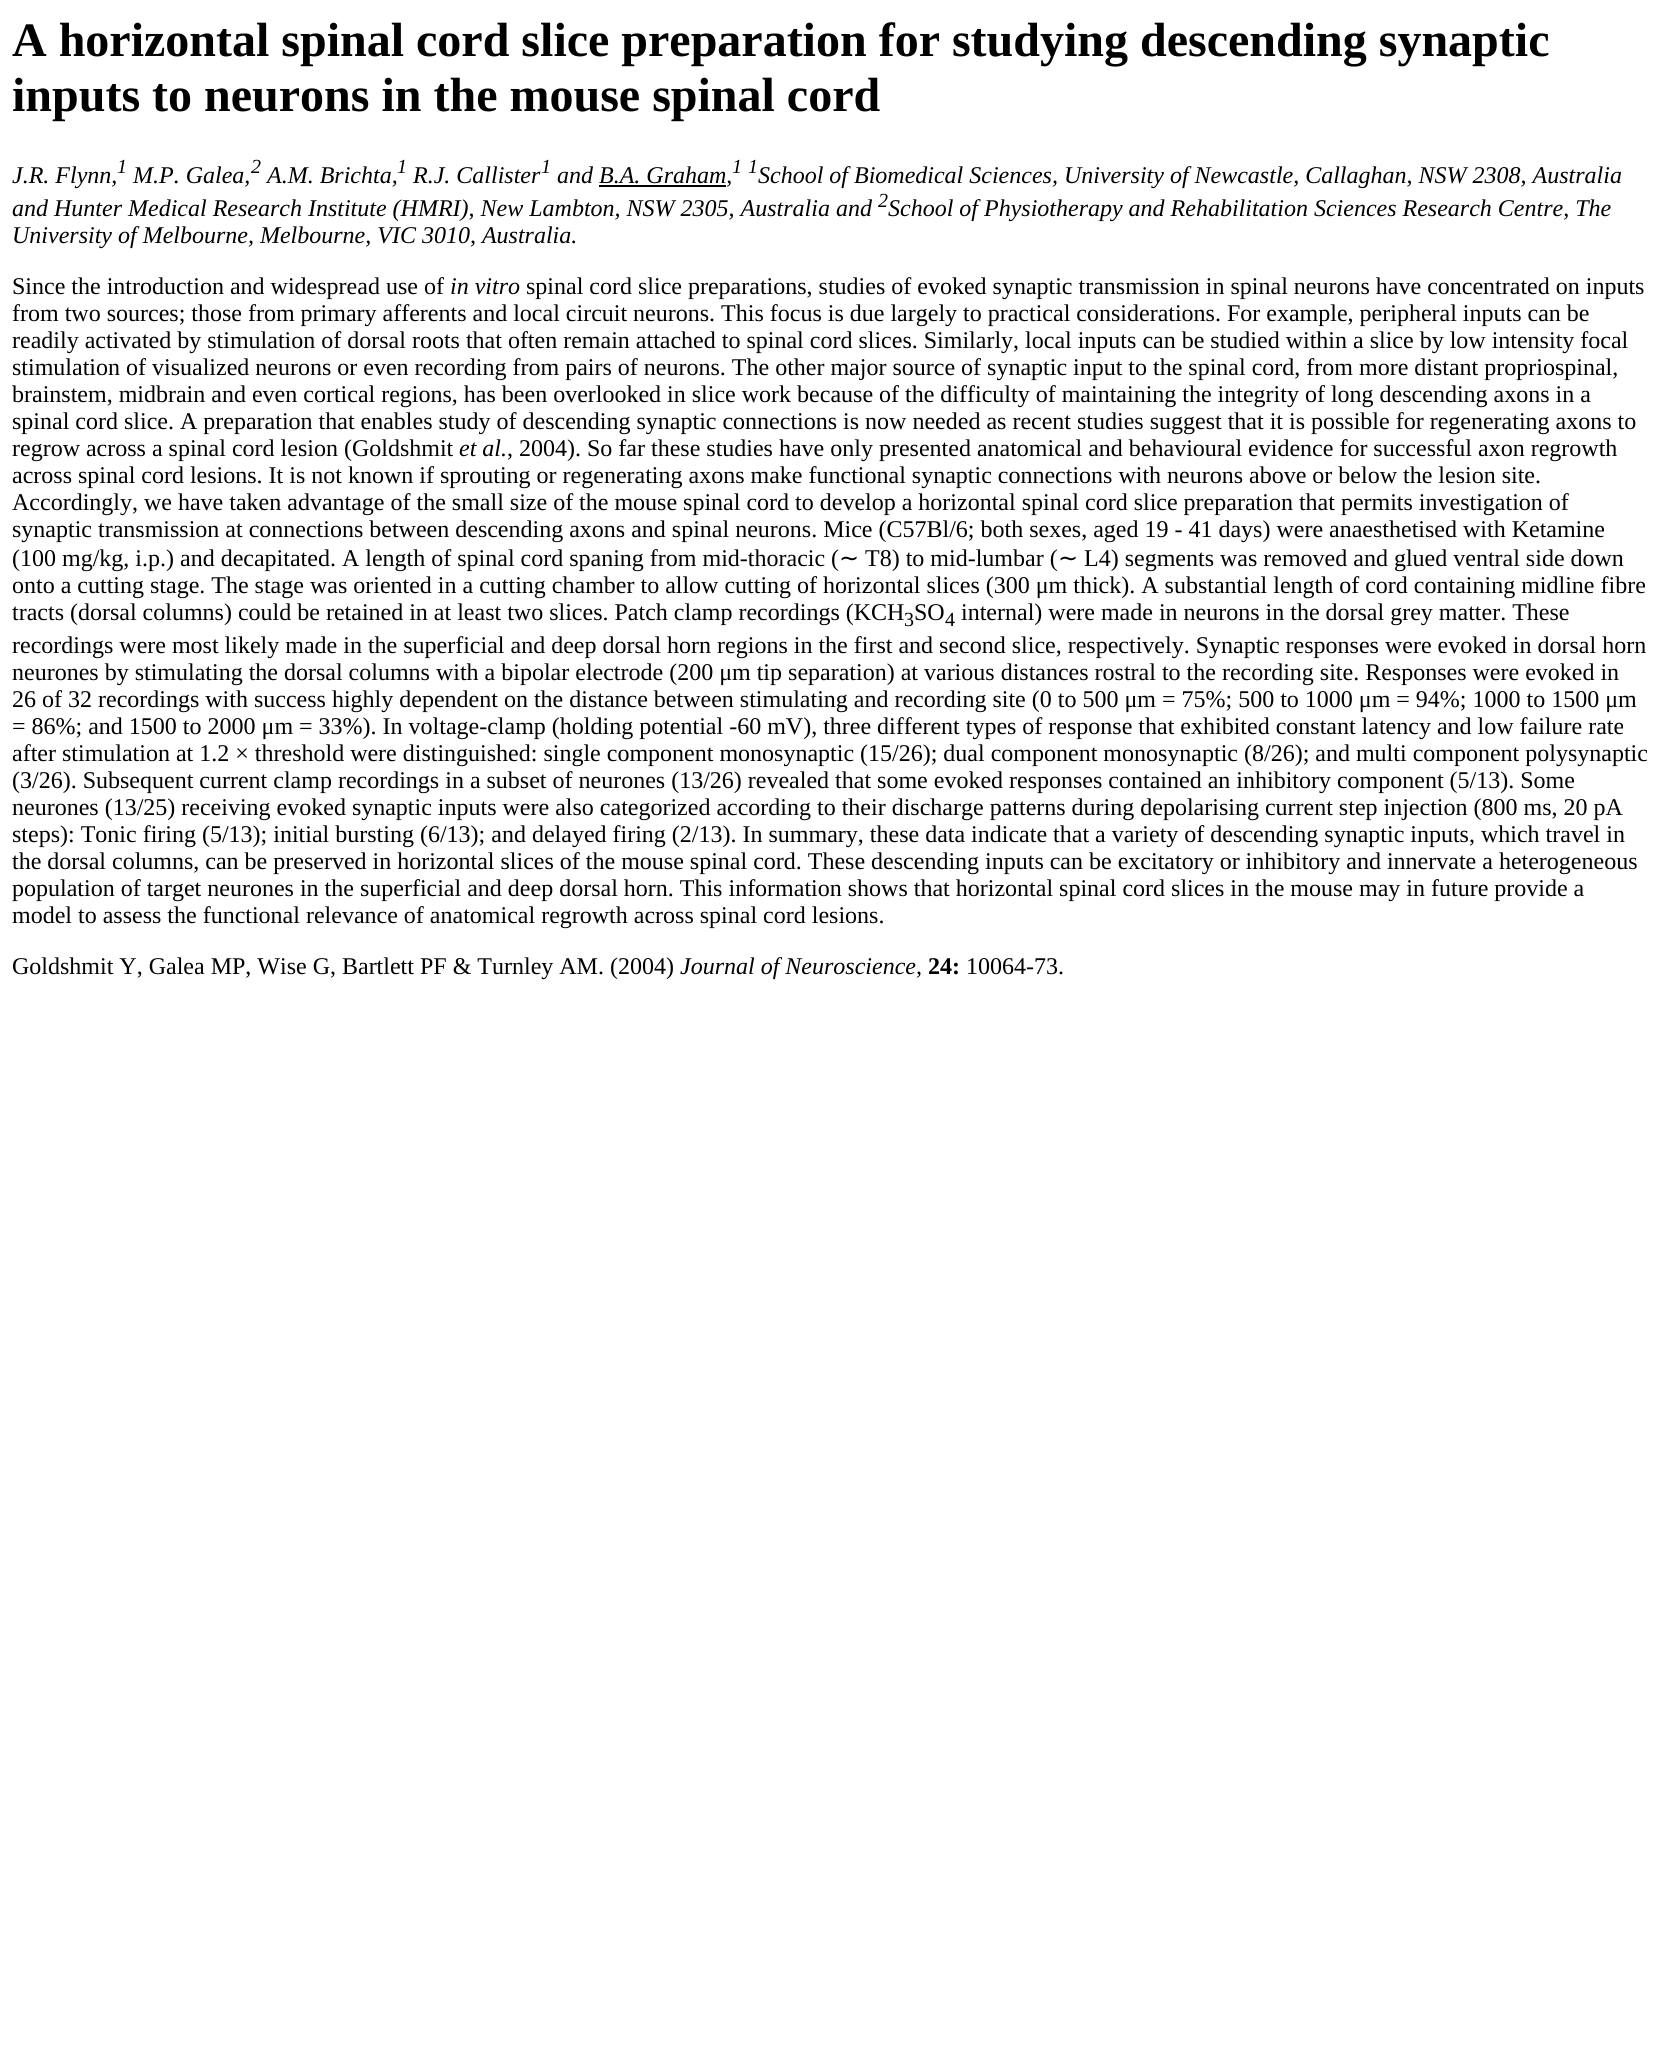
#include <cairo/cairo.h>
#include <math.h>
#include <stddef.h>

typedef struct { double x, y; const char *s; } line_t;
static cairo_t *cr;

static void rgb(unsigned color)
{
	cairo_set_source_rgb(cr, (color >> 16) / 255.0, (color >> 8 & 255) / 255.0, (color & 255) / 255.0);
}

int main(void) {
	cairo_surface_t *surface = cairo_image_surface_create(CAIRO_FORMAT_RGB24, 1660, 2058);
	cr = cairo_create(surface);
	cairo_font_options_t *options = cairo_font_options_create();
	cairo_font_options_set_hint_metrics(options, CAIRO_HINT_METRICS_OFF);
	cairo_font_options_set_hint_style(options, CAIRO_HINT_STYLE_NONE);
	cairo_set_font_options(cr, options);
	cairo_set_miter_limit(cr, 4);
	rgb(0xffffff);
	cairo_paint(cr);
	rgb(0x000000);
	cairo_rectangle(cr, 599, 185, 127, 2);
	cairo_fill(cr);
	cairo_select_font_face(cr, "Liberation Serif", CAIRO_FONT_SLANT_NORMAL, CAIRO_FONT_WEIGHT_BOLD);
	cairo_set_font_size(cr, 48);
	cairo_move_to(cr, 12, 56);
	cairo_show_text(cr, "A horizontal spinal cord slice preparation for studying descending synaptic");
	cairo_move_to(cr, 12, 111);
	cairo_show_text(cr, "inputs to neurons in the mouse spinal cord");
	cairo_select_font_face(cr, "Liberation Serif", CAIRO_FONT_SLANT_ITALIC, CAIRO_FONT_WEIGHT_NORMAL);
	cairo_set_font_size(cr, 24);
	cairo_move_to(cr, 12, 183);
	cairo_show_text(cr, "J.R. Flynn,");
	cairo_set_font_size(cr, 20);
	cairo_move_to(cr, 117, 173);
	cairo_show_text(cr, "1");
	cairo_set_font_size(cr, 24);
	cairo_move_to(cr, 133, 183);
	cairo_show_text(cr, "M.P. Galea,");
	cairo_set_font_size(cr, 20);
	cairo_move_to(cr, 251, 173);
	cairo_show_text(cr, "2");
	cairo_set_font_size(cr, 24);
	cairo_move_to(cr, 267, 183);
	cairo_show_text(cr, "A.M. Brichta,");
	cairo_set_font_size(cr, 20);
	cairo_move_to(cr, 397, 173);
	cairo_show_text(cr, "1");
	cairo_set_font_size(cr, 24);
	cairo_move_to(cr, 413, 183);
	cairo_show_text(cr, "R.J. Callister");
	cairo_set_font_size(cr, 20);
	cairo_move_to(cr, 541, 173);
	cairo_show_text(cr, "1");
	cairo_set_font_size(cr, 24);
	cairo_move_to(cr, 557, 183);
	cairo_show_text(cr, "and B.A. Graham,");
	cairo_set_font_size(cr, 20);
	cairo_move_to(cr, 732, 173);
	cairo_show_text(cr, "1");
	cairo_move_to(cr, 748, 173);
	cairo_show_text(cr, "1");
	cairo_set_font_size(cr, 24);
	cairo_move_to(cr, 758, 183);
	cairo_show_text(cr, "School of Biomedical Sciences, University of Newcastle, Callaghan, NSW 2308, Australia");
	cairo_move_to(cr, 12, 216);
	cairo_show_text(cr, "and Hunter Medical Research Institute (HMRI), New Lambton, NSW 2305, Australia and");
	cairo_set_font_size(cr, 20);
	cairo_move_to(cr, 878, 207);
	cairo_show_text(cr, "2");
	cairo_set_font_size(cr, 24);
	cairo_move_to(cr, 888, 216);
	cairo_show_text(cr, "School of Physiotherapy and Rehabilitation Sciences Research Centre, The");
	cairo_move_to(cr, 12, 243);
	cairo_show_text(cr, "University of Melbourne, Melbourne, VIC 3010, Australia.");
	cairo_select_font_face(cr, "Liberation Serif", CAIRO_FONT_SLANT_NORMAL, CAIRO_FONT_WEIGHT_NORMAL);
	cairo_move_to(cr, 12, 294);
	cairo_show_text(cr, "Since the introduction and widespread use of");
	cairo_select_font_face(cr, "Liberation Serif", CAIRO_FONT_SLANT_ITALIC, CAIRO_FONT_WEIGHT_NORMAL);
	cairo_move_to(cr, 450, 294);
	cairo_show_text(cr, "in vitro");
	cairo_select_font_face(cr, "Liberation Serif", CAIRO_FONT_SLANT_NORMAL, CAIRO_FONT_WEIGHT_NORMAL);
	{
		static const line_t items[] = {
			{526, 294, "spinal cord slice preparations, studies of evoked synaptic transmission in spinal neurons have concentrated on inputs"},
			{12, 321, "from two sources; those from primary afferents and local circuit neurons. This focus is due largely to practical considerations. For example, peripheral inputs can be"},
			{12, 348, "readily activated by stimulation of dorsal roots that often remain attached to spinal cord slices. Similarly, local inputs can be studied within a slice by low intensity focal"},
			{12, 375, "stimulation of visualized neurons or even recording from pairs of neurons. The other major source of synaptic input to the spinal cord, from more distant propriospinal,"},
			{12, 402, "brainstem, midbrain and even cortical regions, has been overlooked in slice work because of the difficulty of maintaining the integrity of long descending axons in a"},
			{12, 429, "spinal cord slice. A preparation that enables study of descending synaptic connections is now needed as recent studies suggest that it is possible for regenerating axons to"},
			{12, 456, "regrow across a spinal cord lesion (Goldshmit"},
		};
		for (size_t i = 0; i < sizeof items / sizeof *items; i++) {
			cairo_move_to(cr, items[i].x, items[i].y);
			cairo_show_text(cr, items[i].s);
		}
	}
	cairo_select_font_face(cr, "Liberation Serif", CAIRO_FONT_SLANT_ITALIC, CAIRO_FONT_WEIGHT_NORMAL);
	cairo_move_to(cr, 459, 456);
	cairo_show_text(cr, "et al.");
	cairo_select_font_face(cr, "Liberation Serif", CAIRO_FONT_SLANT_NORMAL, CAIRO_FONT_WEIGHT_NORMAL);
	{
		static const line_t items[] = {
			{507, 456, ", 2004). So far these studies have only presented anatomical and behavioural evidence for successful axon regrowth"},
			{12, 483, "across spinal cord lesions. It is not known if sprouting or regenerating axons make functional synaptic connections with neurons above or below the lesion site."},
			{12, 510, "Accordingly, we have taken advantage of the small size of the mouse spinal cord to develop a horizontal spinal cord slice preparation that permits investigation of"},
			{12, 537, "synaptic transmission at connections between descending axons and spinal neurons. Mice (C57Bl/6; both sexes, aged 19 - 41 days) were anaesthetised with Ketamine"},
			{12, 566, "(100 mg/kg, i.p.) and decapitated. A length of spinal cord spaning from mid-thoracic ("},
		};
		for (size_t i = 0; i < sizeof items / sizeof *items; i++) {
			cairo_move_to(cr, items[i].x, items[i].y);
			cairo_show_text(cr, items[i].s);
		}
	}
	cairo_select_font_face(cr, "DejaVu Sans", CAIRO_FONT_SLANT_NORMAL, CAIRO_FONT_WEIGHT_NORMAL);
	cairo_move_to(cr, 839, 566);
	cairo_show_text(cr, "∼");
	cairo_select_font_face(cr, "Liberation Serif", CAIRO_FONT_SLANT_NORMAL, CAIRO_FONT_WEIGHT_NORMAL);
	cairo_move_to(cr, 865, 566);
	cairo_show_text(cr, "T8) to mid-lumbar (");
	cairo_select_font_face(cr, "DejaVu Sans", CAIRO_FONT_SLANT_NORMAL, CAIRO_FONT_WEIGHT_NORMAL);
	cairo_move_to(cr, 1058, 566);
	cairo_show_text(cr, "∼");
	cairo_select_font_face(cr, "Liberation Serif", CAIRO_FONT_SLANT_NORMAL, CAIRO_FONT_WEIGHT_NORMAL);
	{
		static const line_t items[] = {
			{1084, 566, "L4) segments was removed and glued ventral side down"},
			{12, 593, "onto a cutting stage. The stage was oriented in a cutting chamber to allow cutting of horizontal slices (300 μm thick). A substantial length of cord containing midline fibre"},
			{12, 620, "tracts (dorsal columns) could be retained in at least two slices. Patch clamp recordings (KCH"},
		};
		for (size_t i = 0; i < sizeof items / sizeof *items; i++) {
			cairo_move_to(cr, items[i].x, items[i].y);
			cairo_show_text(cr, items[i].s);
		}
	}
	cairo_set_font_size(cr, 20);
	cairo_move_to(cr, 904, 626);
	cairo_show_text(cr, "3");
	cairo_set_font_size(cr, 24);
	cairo_move_to(cr, 914, 620);
	cairo_show_text(cr, "SO");
	cairo_set_font_size(cr, 20);
	cairo_move_to(cr, 945, 626);
	cairo_show_text(cr, "4");
	cairo_set_font_size(cr, 24);
	{
		static const line_t items[] = {
			{961, 620, "internal) were made in neurons in the dorsal grey matter. These"},
			{12, 653, "recordings were most likely made in the superficial and deep dorsal horn regions in the first and second slice, respectively. Synaptic responses were evoked in dorsal horn"},
			{12, 680, "neurones by stimulating the dorsal columns with a bipolar electrode (200 μm tip separation) at various distances rostral to the recording site. Responses were evoked in"},
			{12, 707, "26 of 32 recordings with success highly dependent on the distance between stimulating and recording site (0 to 500 μm = 75%; 500 to 1000 μm = 94%; 1000 to 1500 μm"},
			{12, 734, "= 86%; and 1500 to 2000 μm = 33%). In voltage-clamp (holding potential -60 mV), three different types of response that exhibited constant latency and low failure rate"},
			{12, 761, "after stimulation at 1.2 × threshold were distinguished: single component monosynaptic (15/26); dual component monosynaptic (8/26); and multi component polysynaptic"},
			{12, 788, "(3/26). Subsequent current clamp recordings in a subset of neurones (13/26) revealed that some evoked responses contained an inhibitory component (5/13). Some"},
			{12, 815, "neurones (13/25) receiving evoked synaptic inputs were also categorized according to their discharge patterns during depolarising current step injection (800 ms, 20 pA"},
			{12, 842, "steps): Tonic firing (5/13); initial bursting (6/13); and delayed firing (2/13). In summary, these data indicate that a variety of descending synaptic inputs, which travel in"},
			{12, 869, "the dorsal columns, can be preserved in horizontal slices of the mouse spinal cord. These descending inputs can be excitatory or inhibitory and innervate a heterogeneous"},
			{12, 896, "population of target neurones in the superficial and deep dorsal horn. This information shows that horizontal spinal cord slices in the mouse may in future provide a"},
			{12, 923, "model to assess the functional relevance of anatomical regrowth across spinal cord lesions."},
			{12, 974, "Goldshmit Y, Galea MP, Wise G, Bartlett PF & Turnley AM. (2004)"},
		};
		for (size_t i = 0; i < sizeof items / sizeof *items; i++) {
			cairo_move_to(cr, items[i].x, items[i].y);
			cairo_show_text(cr, items[i].s);
		}
	}
	cairo_select_font_face(cr, "Liberation Serif", CAIRO_FONT_SLANT_ITALIC, CAIRO_FONT_WEIGHT_NORMAL);
	cairo_move_to(cr, 680, 974);
	cairo_show_text(cr, "Journal of Neuroscience,");
	cairo_select_font_face(cr, "Liberation Serif", CAIRO_FONT_SLANT_NORMAL, CAIRO_FONT_WEIGHT_BOLD);
	cairo_move_to(cr, 928, 974);
	cairo_show_text(cr, "24:");
	cairo_select_font_face(cr, "Liberation Serif", CAIRO_FONT_SLANT_NORMAL, CAIRO_FONT_WEIGHT_NORMAL);
	cairo_move_to(cr, 966, 974);
	cairo_show_text(cr, "10064-73.");
	cairo_surface_write_to_png(surface, "page.png");
	cairo_font_options_destroy(options);
	cairo_destroy(cr);
	cairo_surface_destroy(surface);
	return 0;
}
